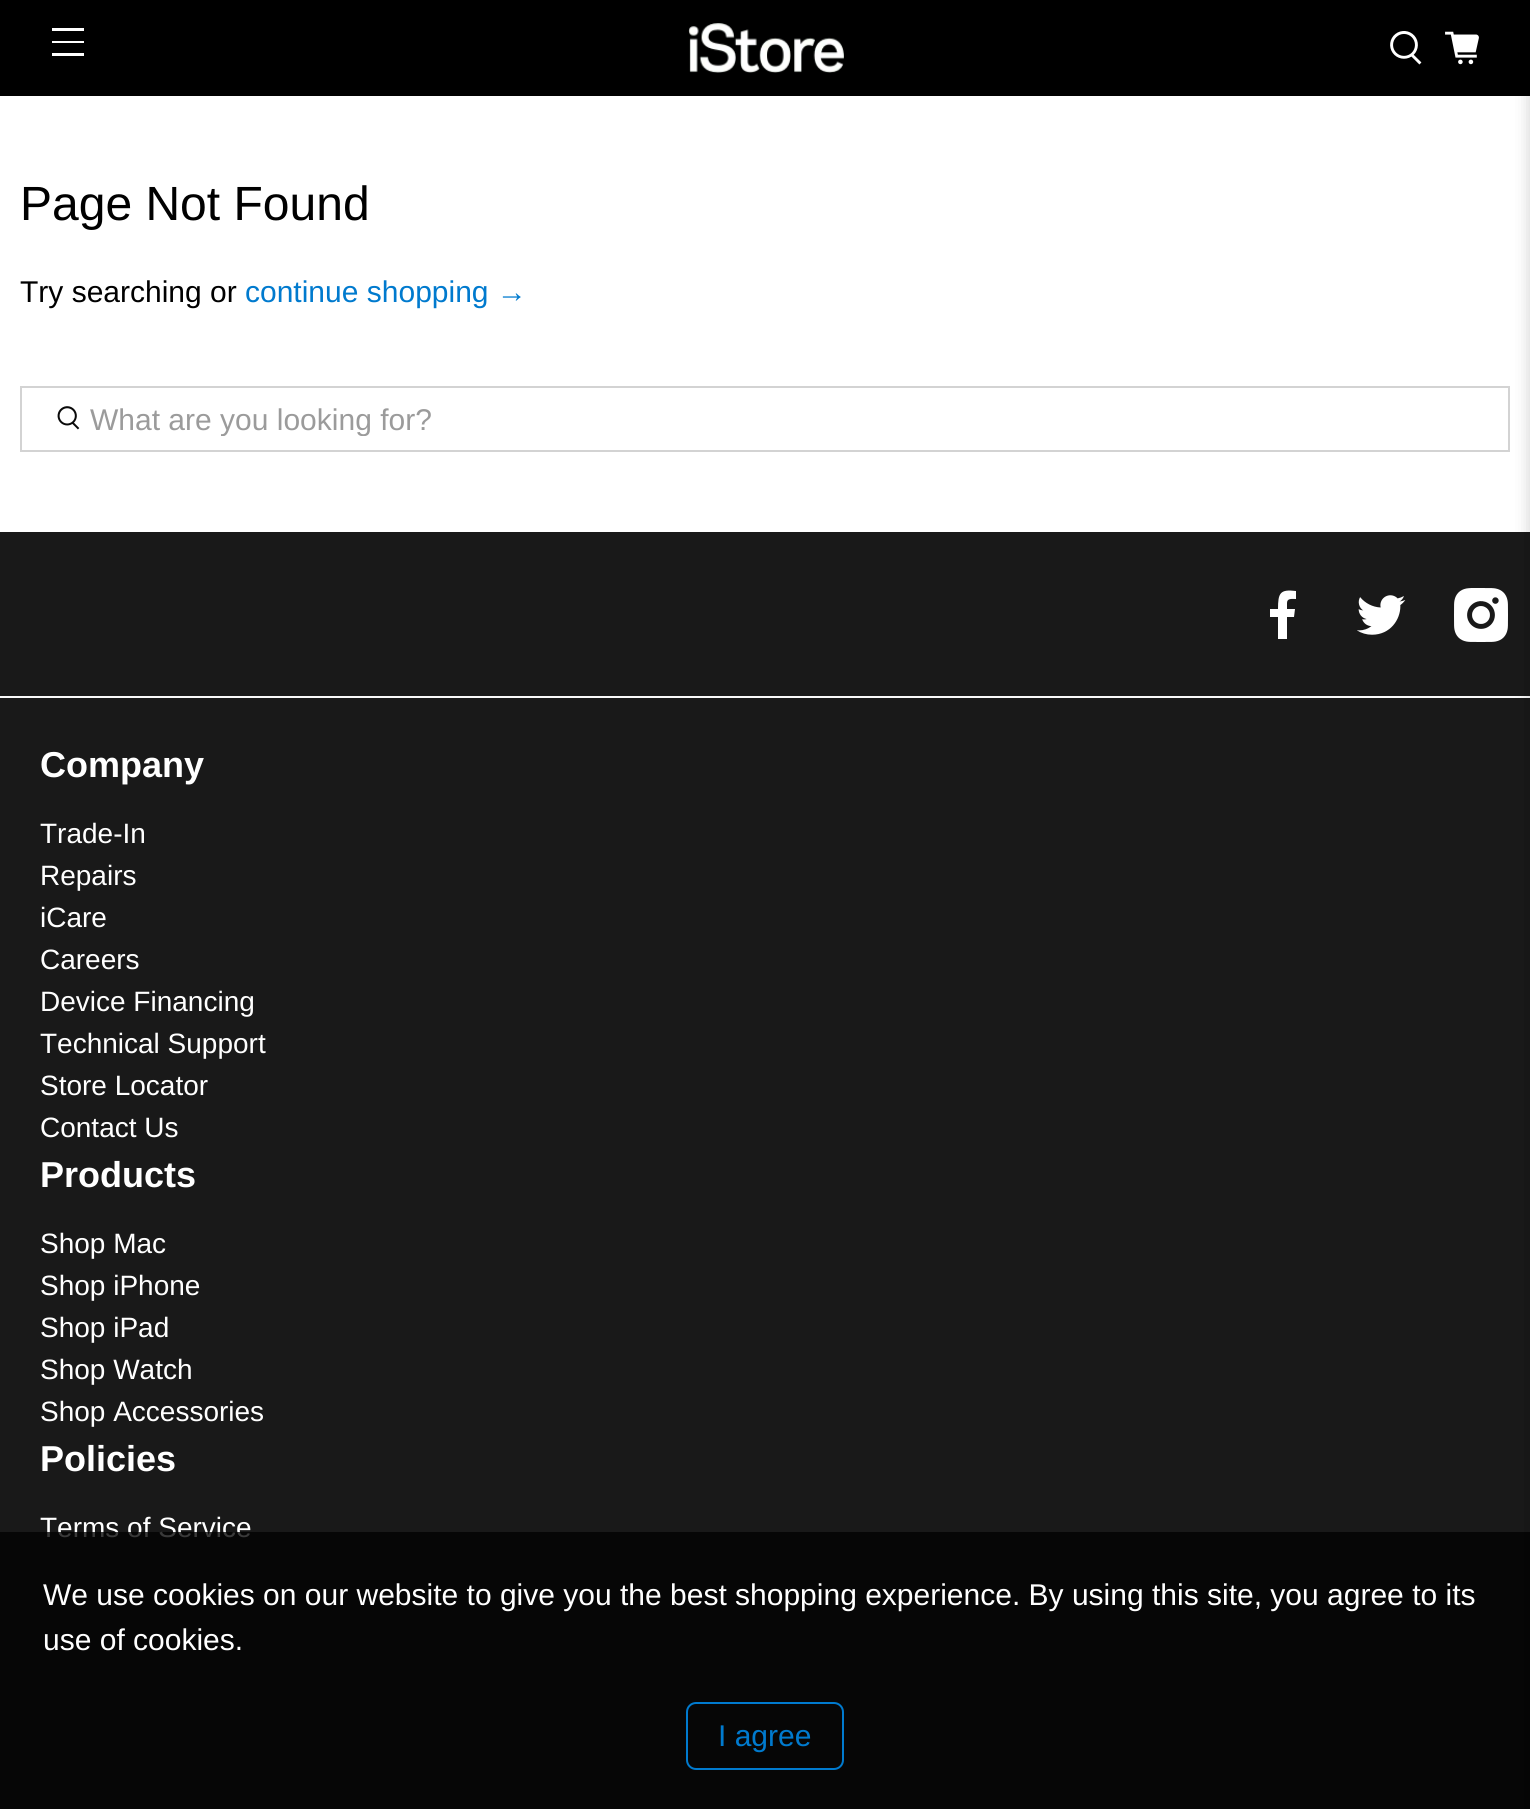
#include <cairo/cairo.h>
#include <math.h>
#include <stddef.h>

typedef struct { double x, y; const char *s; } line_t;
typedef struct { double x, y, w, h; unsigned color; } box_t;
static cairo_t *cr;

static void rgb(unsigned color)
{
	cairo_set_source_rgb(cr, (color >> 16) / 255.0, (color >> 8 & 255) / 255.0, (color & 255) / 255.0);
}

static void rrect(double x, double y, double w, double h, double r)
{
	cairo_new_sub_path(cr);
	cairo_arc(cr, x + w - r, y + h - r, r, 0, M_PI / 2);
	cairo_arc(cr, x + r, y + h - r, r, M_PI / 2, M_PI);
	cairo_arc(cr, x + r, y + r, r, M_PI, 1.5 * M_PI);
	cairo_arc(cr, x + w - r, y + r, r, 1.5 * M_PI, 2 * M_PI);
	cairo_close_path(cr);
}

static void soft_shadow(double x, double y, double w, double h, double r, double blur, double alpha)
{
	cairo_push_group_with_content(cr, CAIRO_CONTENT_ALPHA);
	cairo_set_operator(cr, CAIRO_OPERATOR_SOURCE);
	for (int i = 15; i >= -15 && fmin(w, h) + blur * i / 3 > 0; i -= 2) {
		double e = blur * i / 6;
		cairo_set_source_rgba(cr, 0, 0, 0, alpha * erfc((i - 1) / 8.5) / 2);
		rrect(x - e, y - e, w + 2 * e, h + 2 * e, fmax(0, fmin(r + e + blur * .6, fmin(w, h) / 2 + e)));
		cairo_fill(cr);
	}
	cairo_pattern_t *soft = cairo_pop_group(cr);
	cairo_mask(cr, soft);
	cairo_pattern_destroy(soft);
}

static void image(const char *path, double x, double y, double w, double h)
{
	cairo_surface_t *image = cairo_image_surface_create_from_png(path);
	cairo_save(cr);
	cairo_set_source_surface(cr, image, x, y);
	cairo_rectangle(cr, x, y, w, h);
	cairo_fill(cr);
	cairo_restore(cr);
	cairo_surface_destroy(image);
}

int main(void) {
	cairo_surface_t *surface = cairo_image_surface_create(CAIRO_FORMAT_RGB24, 1530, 1809);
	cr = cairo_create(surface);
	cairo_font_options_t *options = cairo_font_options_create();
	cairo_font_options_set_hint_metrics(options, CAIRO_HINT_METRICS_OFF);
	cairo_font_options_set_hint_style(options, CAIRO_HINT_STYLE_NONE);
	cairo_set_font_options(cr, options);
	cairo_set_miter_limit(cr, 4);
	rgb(0xffffff);
	cairo_paint(cr);
	{
		static const box_t items[] = {
			{0, 0, 1530, 96, 0x000000},
			{52, 28, 32, 3, 0xffffff},
			{52, 41, 32, 2, 0xffffff},
			{52, 53, 32, 3, 0xffffff},
		};
		for (size_t i = 0; i < sizeof items / sizeof *items; i++) {
			rgb(items[i].color);
			cairo_rectangle(cr, items[i].x, items[i].y, items[i].w, items[i].h);
			cairo_fill(cr);
		}
	}
	image("img/1.png", 688, 23, 156, 50);
	image("img/2.png", 1390, 31, 32, 34);
	image("img/3.png", 1445, 31, 34, 34);
	cairo_rectangle(cr, 21, 387, 1488, 64);
	rgb(0xd3d3d3);
	cairo_stroke(cr);
	rgb(0x191919);
	cairo_rectangle(cr, 0, 532, 1530, 164);
	cairo_fill(cr);
	rgb(0xf9f9f9);
	cairo_rectangle(cr, 0, 696, 1530, 2);
	cairo_fill(cr);
	image("img/6.png", 1454, 588, 54, 54);
	rgb(0x191919);
	cairo_rectangle(cr, 0, 698, 1530, 1111);
	cairo_fill(cr);
	rgb(0x0a0a0a);
	soft_shadow(1530, 16, 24, 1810, 0, 8, 0.1);
	image("img/4.png", 57, 406, 23, 24);
	soft_shadow(1530, 16, 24, 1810, 0, 8, 0.1);
	rgb(0xffffff);
	cairo_new_path(cr);
	cairo_move_to(cr, 1287, 603);
	cairo_line_to(cr, 1287, 609);
	cairo_line_to(cr, 1295, 609);
	cairo_line_to(cr, 1294, 617);
	cairo_line_to(cr, 1287, 617);
	cairo_line_to(cr, 1287, 639);
	cairo_line_to(cr, 1278, 639);
	cairo_line_to(cr, 1278, 617);
	cairo_line_to(cr, 1270, 617);
	cairo_line_to(cr, 1270, 609);
	cairo_line_to(cr, 1278, 609);
	cairo_curve_to(cr, 1278, 593, 1280, 589, 1296, 591);
	cairo_line_to(cr, 1296, 599);
	cairo_curve_to(cr, 1292, 599, 1287, 598, 1287, 603);
	cairo_close_path(cr);
	cairo_fill(cr);
	image("img/5.png", 1357, 595, 49, 40);
	cairo_select_font_face(cr, "Liberation Sans", CAIRO_FONT_SLANT_NORMAL, CAIRO_FONT_WEIGHT_NORMAL);
	cairo_set_font_size(cr, 48);
	rgb(0x000000);
	cairo_move_to(cr, 20, 220);
	cairo_show_text(cr, "Page Not Found");
	cairo_set_font_size(cr, 30);
	cairo_move_to(cr, 20, 302);
	cairo_show_text(cr, "Try searching or");
	rgb(0x007ace);
	cairo_move_to(cr, 245, 302);
	cairo_show_text(cr, "continue shopping →");
	cairo_save(cr);
	cairo_rectangle(cr, 90, 402, 1402, 34);
	cairo_clip(cr);
	rgb(0x9b9b9b);
	cairo_move_to(cr, 90, 430);
	cairo_show_text(cr, "What are you looking for?");
	cairo_restore(cr);
	cairo_select_font_face(cr, "Liberation Sans", CAIRO_FONT_SLANT_NORMAL, CAIRO_FONT_WEIGHT_BOLD);
	cairo_set_font_size(cr, 36);
	rgb(0xffffff);
	cairo_move_to(cr, 40, 777);
	cairo_show_text(cr, "Company");
	cairo_select_font_face(cr, "Liberation Sans", CAIRO_FONT_SLANT_NORMAL, CAIRO_FONT_WEIGHT_NORMAL);
	cairo_set_font_size(cr, 28);
	{
		static const line_t items[] = {
			{40, 843, "Trade-In"},
			{40, 885, "Repairs"},
			{40, 927, "iCare"},
			{40, 969, "Careers"},
			{40, 1011, "Device Financing"},
			{40, 1053, "Technical Support"},
			{40, 1095, "Store Locator"},
			{40, 1137, "Contact Us"},
		};
		for (size_t i = 0; i < sizeof items / sizeof *items; i++) {
			cairo_move_to(cr, items[i].x, items[i].y);
			cairo_show_text(cr, items[i].s);
		}
	}
	cairo_select_font_face(cr, "Liberation Sans", CAIRO_FONT_SLANT_NORMAL, CAIRO_FONT_WEIGHT_BOLD);
	cairo_set_font_size(cr, 36);
	cairo_move_to(cr, 40, 1187);
	cairo_show_text(cr, "Products");
	cairo_select_font_face(cr, "Liberation Sans", CAIRO_FONT_SLANT_NORMAL, CAIRO_FONT_WEIGHT_NORMAL);
	cairo_set_font_size(cr, 28);
	{
		static const line_t items[] = {
			{40, 1253, "Shop Mac"},
			{40, 1295, "Shop iPhone"},
			{40, 1337, "Shop iPad"},
			{40, 1379, "Shop Watch"},
			{40, 1421, "Shop Accessories"},
		};
		for (size_t i = 0; i < sizeof items / sizeof *items; i++) {
			cairo_move_to(cr, items[i].x, items[i].y);
			cairo_show_text(cr, items[i].s);
		}
	}
	cairo_select_font_face(cr, "Liberation Sans", CAIRO_FONT_SLANT_NORMAL, CAIRO_FONT_WEIGHT_BOLD);
	cairo_set_font_size(cr, 36);
	cairo_move_to(cr, 40, 1471);
	cairo_show_text(cr, "Policies");
	cairo_select_font_face(cr, "Liberation Sans", CAIRO_FONT_SLANT_NORMAL, CAIRO_FONT_WEIGHT_NORMAL);
	cairo_set_font_size(cr, 28);
	cairo_move_to(cr, 40, 1537);
	cairo_show_text(cr, "Terms of Service");
	cairo_set_source_rgba(cr, 0, 0, 0, 0.77);
	cairo_rectangle(cr, 0, 1532, 1530, 277);
	cairo_fill(cr);
	cairo_set_font_size(cr, 30);
	rgb(0xffffff);
	cairo_move_to(cr, 43, 1605);
	cairo_show_text(cr, "We use cookies on our website to give you the best shopping experience. By using this site, you agree to its");
	cairo_move_to(cr, 43, 1650);
	cairo_show_text(cr, "use of cookies.");
	rrect(687, 1703, 156, 66, 9);
	rgb(0x007ace);
	cairo_stroke(cr);
	cairo_move_to(cr, 718, 1746);
	cairo_show_text(cr, "I agree");
	cairo_surface_write_to_png(surface, "page.png");
	cairo_font_options_destroy(options);
	cairo_destroy(cr);
	cairo_surface_destroy(surface);
	return 0;
}
